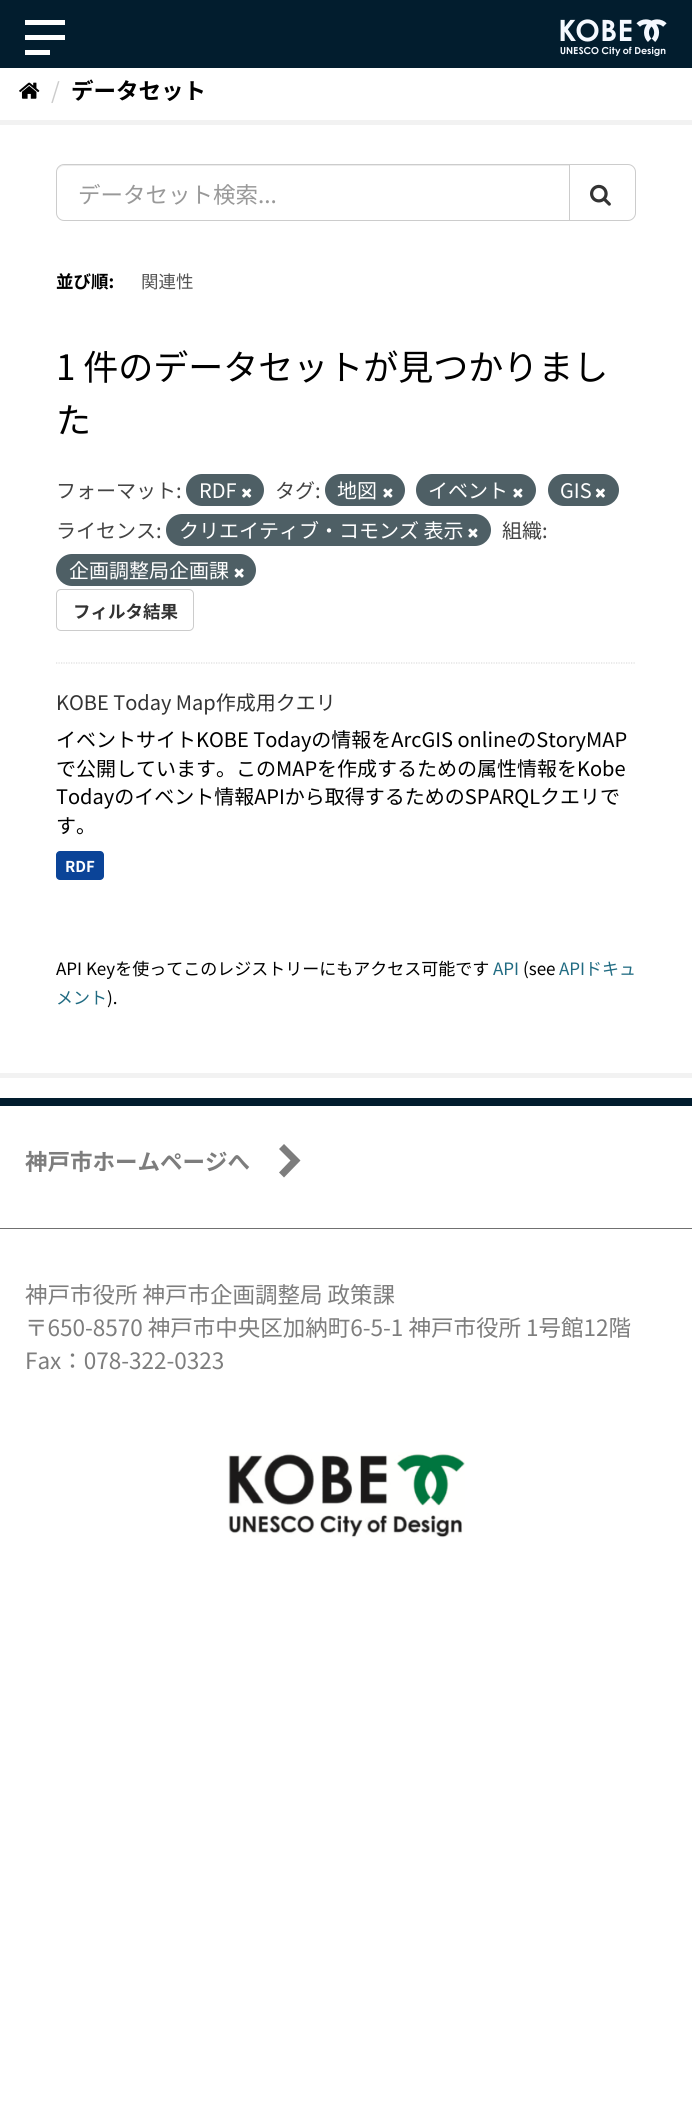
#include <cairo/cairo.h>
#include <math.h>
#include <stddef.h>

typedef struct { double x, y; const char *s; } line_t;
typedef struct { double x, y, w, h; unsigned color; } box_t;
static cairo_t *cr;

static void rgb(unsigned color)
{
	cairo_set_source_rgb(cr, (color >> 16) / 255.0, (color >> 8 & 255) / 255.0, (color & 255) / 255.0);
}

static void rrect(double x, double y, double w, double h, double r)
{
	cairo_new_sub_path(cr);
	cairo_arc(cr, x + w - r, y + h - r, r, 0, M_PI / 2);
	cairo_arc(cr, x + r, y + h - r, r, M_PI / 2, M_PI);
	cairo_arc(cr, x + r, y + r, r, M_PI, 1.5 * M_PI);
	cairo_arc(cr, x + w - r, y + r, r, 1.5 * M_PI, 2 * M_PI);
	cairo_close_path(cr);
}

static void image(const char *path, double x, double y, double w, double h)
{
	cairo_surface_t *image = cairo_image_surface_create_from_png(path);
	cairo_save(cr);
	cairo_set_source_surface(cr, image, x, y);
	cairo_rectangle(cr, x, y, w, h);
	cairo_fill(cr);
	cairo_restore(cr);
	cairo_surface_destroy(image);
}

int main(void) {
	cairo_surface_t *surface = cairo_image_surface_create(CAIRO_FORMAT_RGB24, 692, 2104);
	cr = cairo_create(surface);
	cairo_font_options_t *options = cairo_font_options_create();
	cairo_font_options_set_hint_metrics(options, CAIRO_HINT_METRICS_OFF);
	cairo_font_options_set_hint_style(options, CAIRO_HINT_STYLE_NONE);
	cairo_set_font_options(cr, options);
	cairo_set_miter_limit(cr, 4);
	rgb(0xffffff);
	cairo_paint(cr);
	{
		static const box_t items[] = {
			{0, 0, 692, 68, 0x021d2e},
			{25, 20, 40, 5, 0xffffff},
			{25, 35, 40, 5, 0xffffff},
			{25, 50, 25, 5, 0xffffff},
		};
		for (size_t i = 0; i < sizeof items / sizeof *items; i++) {
			rgb(items[i].color);
			cairo_rectangle(cr, items[i].x, items[i].y, items[i].w, items[i].h);
			cairo_fill(cr);
		}
	}
	image("img/1.png", 560, 19, 107, 37);
	image("img/2.png", 19, 82, 21, 17);
	cairo_rectangle(cr, -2.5, 122.5, 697, 953);
	rgb(0xf2f2f2);
	cairo_set_line_width(cr, 5);
	cairo_stroke(cr);
	cairo_new_path(cr);
	cairo_move_to(cr, 56, 663);
	cairo_line_to(cr, 636, 663);
	rgb(0xdddddd);
	cairo_set_line_width(cr, 1.2);
	cairo_set_dash(cr, (double[]){1.25, 1.25}, 2, 0);
	cairo_stroke(cr);
	rgb(0xececec);
	cairo_new_path(cr);
	cairo_move_to(cr, 64, 166);
	cairo_line_to(cr, 569, 166);
	cairo_line_to(cr, 569, 165);
	cairo_line_to(cr, 64, 165);
	cairo_curve_to(cr, 60, 165, 58, 168, 58, 172);
	cairo_curve_to(cr, 58, 169, 60, 166, 64, 166);
	cairo_close_path(cr);
	cairo_fill(cr);
	cairo_new_path(cr);
	cairo_move_to(cr, 64, 164.5);
	cairo_line_to(cr, 569.5, 164.5);
	cairo_line_to(cr, 569.5, 220.5);
	cairo_line_to(cr, 64, 220.5);
	cairo_curve_to(cr, 60, 220.5, 56.5, 217, 56.5, 213);
	cairo_line_to(cr, 56.5, 172);
	cairo_curve_to(cr, 56.5, 168, 60, 164.5, 64, 164.5);
	cairo_close_path(cr);
	rgb(0xcccccc);
	cairo_set_line_width(cr, 1);
	cairo_set_dash(cr, NULL, 0, 0);
	cairo_stroke(cr);
	rgb(0xffffff);
	cairo_new_path(cr);
	cairo_move_to(cr, 569.5, 164.5);
	cairo_line_to(cr, 628, 164.5);
	cairo_curve_to(cr, 632, 164.5, 635.5, 168, 635.5, 172);
	cairo_line_to(cr, 635.5, 213);
	cairo_curve_to(cr, 635.5, 217, 632, 220.5, 628, 220.5);
	cairo_line_to(cr, 569.5, 220.5);
	cairo_close_path(cr);
	cairo_fill_preserve(cr);
	rgb(0xcccccc);
	cairo_stroke(cr);
	image("img/3.png", 590, 184, 21, 22);
	rgb(0x4e5f65);
	rrect(186, 474, 78, 32, 16);
	cairo_fill(cr);
	image("img/4.png", 242, 488, 10, 10);
	rrect(325, 474, 80, 32, 16);
	cairo_fill(cr);
	image("img/5.png", 383, 488, 10, 10);
	rrect(416, 474, 120, 32, 16);
	cairo_fill(cr);
	image("img/5.png", 513, 488, 10, 10);
	rrect(548, 474, 71, 32, 16);
	cairo_fill(cr);
	image("img/6.png", 595, 488, 10, 10);
	rrect(166, 514, 325, 32, 16);
	cairo_fill(cr);
	image("img/5.png", 468, 528, 10, 10);
	rrect(56, 554, 200, 32, 16);
	cairo_fill(cr);
	image("img/7.png", 234, 568, 10, 10);
	rrect(56.5, 589.5, 137, 41, 4.5);
	rgb(0xcccccc);
	cairo_stroke(cr);
	rgb(0x0b4498);
	rrect(56, 851, 48, 29, 4);
	cairo_fill(cr);
	rgb(0x021d2e);
	cairo_rectangle(cr, 0, 1098, 692, 8);
	cairo_fill(cr);
	rgb(0x7d7d7d);
	cairo_new_path(cr);
	cairo_move_to(cr, 300.5, 1160.5);
	cairo_line_to(cr, 284, 1177.5);
	cairo_line_to(cr, 279, 1172.5);
	cairo_line_to(cr, 290.5, 1160.5);
	cairo_line_to(cr, 279, 1149);
	cairo_line_to(cr, 284, 1144);
	cairo_close_path(cr);
	cairo_fill(cr);
	rgb(0x707070);
	cairo_rectangle(cr, 0, 1228, 692, 1);
	cairo_fill(cr);
	image("img/8.png", 228, 1452, 237, 86);
	cairo_select_font_face(cr, "Noto Sans JP", CAIRO_FONT_SLANT_NORMAL, CAIRO_FONT_WEIGHT_NORMAL);
	cairo_set_font_size(cr, 22.5);
	rgb(0xcccccc);
	cairo_move_to(cr, 51, 99);
	cairo_show_text(cr, "/");
	cairo_select_font_face(cr, "Noto Sans JP", CAIRO_FONT_SLANT_NORMAL, CAIRO_FONT_WEIGHT_BOLD);
	rgb(0x000000);
	cairo_move_to(cr, 71, 99);
	cairo_show_text(cr, "データセット");
	cairo_select_font_face(cr, "Noto Sans JP", CAIRO_FONT_SLANT_NORMAL, CAIRO_FONT_WEIGHT_NORMAL);
	rgb(0x999999);
	cairo_move_to(cr, 78, 203);
	cairo_show_text(cr, "データセット検索...");
	cairo_select_font_face(cr, "Noto Sans JP", CAIRO_FONT_SLANT_NORMAL, CAIRO_FONT_WEIGHT_BOLD);
	cairo_set_font_size(cr, 17.5);
	rgb(0x000000);
	cairo_move_to(cr, 56, 288);
	cairo_show_text(cr, "並び順:");
	cairo_select_font_face(cr, "Noto Sans JP", CAIRO_FONT_SLANT_NORMAL, CAIRO_FONT_WEIGHT_NORMAL);
	rgb(0x555555);
	cairo_move_to(cr, 141, 288);
	cairo_show_text(cr, "関連性");
	cairo_set_font_size(cr, 35);
	rgb(0x000000);
	cairo_move_to(cr, 56, 380);
	cairo_show_text(cr, "1 件のデータセットが見つかりまし");
	cairo_move_to(cr, 56, 433);
	cairo_show_text(cr, "た");
	cairo_set_font_size(cr, 20);
	rgb(0x444444);
	cairo_move_to(cr, 56, 498);
	cairo_show_text(cr, "フォーマット:");
	rgb(0xffffff);
	cairo_move_to(cr, 199, 498);
	cairo_show_text(cr, "RDF");
	rgb(0x444444);
	cairo_move_to(cr, 275, 498);
	cairo_show_text(cr, "タグ:");
	rgb(0xffffff);
	{
		static const line_t items[] = {
			{337, 498, "地図"},
			{428, 498, "イベント"},
			{560, 498, "GIS"},
		};
		for (size_t i = 0; i < sizeof items / sizeof *items; i++) {
			cairo_move_to(cr, items[i].x, items[i].y);
			cairo_show_text(cr, items[i].s);
		}
	}
	rgb(0x444444);
	cairo_move_to(cr, 56, 538);
	cairo_show_text(cr, "ライセンス:");
	rgb(0xffffff);
	cairo_move_to(cr, 179, 538);
	cairo_show_text(cr, "クリエイティブ・コモンズ 表示");
	rgb(0x444444);
	cairo_move_to(cr, 502, 538);
	cairo_show_text(cr, "組織:");
	rgb(0xffffff);
	cairo_move_to(cr, 69, 578);
	cairo_show_text(cr, "企画調整局企画課");
	cairo_select_font_face(cr, "Noto Sans JP", CAIRO_FONT_SLANT_NORMAL, CAIRO_FONT_WEIGHT_BOLD);
	cairo_set_font_size(cr, 17.5);
	rgb(0x333333);
	cairo_move_to(cr, 73, 618);
	cairo_show_text(cr, "フィルタ結果");
	cairo_select_font_face(cr, "Noto Sans JP", CAIRO_FONT_SLANT_NORMAL, CAIRO_FONT_WEIGHT_NORMAL);
	cairo_set_font_size(cr, 20);
	cairo_move_to(cr, 56, 710);
	cairo_show_text(cr, "KOBE Today Map作成用クエリ");
	rgb(0x000000);
	{
		static const line_t items[] = {
			{56, 747, "イベントサイトKOBE Todayの情報をArcGIS onlineのStoryMAP"},
			{56, 776, "で公開しています。このMAPを作成するための属性情報をKobe"},
			{56, 804, "Todayのイベント情報APIから取得するためのSPARQLクエリで"},
			{56, 833, "す。"},
		};
		for (size_t i = 0; i < sizeof items / sizeof *items; i++) {
			cairo_move_to(cr, items[i].x, items[i].y);
			cairo_show_text(cr, items[i].s);
		}
	}
	cairo_select_font_face(cr, "Noto Sans JP", CAIRO_FONT_SLANT_NORMAL, CAIRO_FONT_WEIGHT_BOLD);
	cairo_set_font_size(cr, 15);
	rgb(0xffffff);
	cairo_move_to(cr, 65, 872);
	cairo_show_text(cr, "RDF");
	cairo_select_font_face(cr, "Noto Sans JP", CAIRO_FONT_SLANT_NORMAL, CAIRO_FONT_WEIGHT_NORMAL);
	cairo_set_font_size(cr, 17);
	rgb(0x000000);
	cairo_move_to(cr, 56, 975);
	cairo_show_text(cr, "API Keyを使ってこのレジストリーにもアクセス可能です");
	rgb(0x206b82);
	cairo_move_to(cr, 493, 975);
	cairo_show_text(cr, "API");
	rgb(0x000000);
	cairo_move_to(cr, 523, 975);
	cairo_show_text(cr, "(see");
	rgb(0x206b82);
	cairo_move_to(cr, 559, 975);
	cairo_show_text(cr, "APIドキュ");
	cairo_move_to(cr, 56, 1004);
	cairo_show_text(cr, "メント");
	rgb(0x000000);
	cairo_move_to(cr, 107, 1004);
	cairo_show_text(cr, ").");
	cairo_select_font_face(cr, "Noto Sans JP", CAIRO_FONT_SLANT_NORMAL, CAIRO_FONT_WEIGHT_BOLD);
	cairo_set_font_size(cr, 22.5);
	rgb(0x7d7d7d);
	cairo_move_to(cr, 25, 1170);
	cairo_show_text(cr, "神戸市ホームページへ");
	cairo_select_font_face(cr, "Noto Sans JP", CAIRO_FONT_SLANT_NORMAL, CAIRO_FONT_WEIGHT_NORMAL);
	{
		static const line_t items[] = {
			{25, 1303, "神戸市役所 神戸市企画調整局 政策課"},
			{25, 1336, "〒650-8570 神戸市中央区加納町6-5-1 神戸市役所 1号館12階"},
			{25, 1369, "Fax：078-322-0323"},
		};
		for (size_t i = 0; i < sizeof items / sizeof *items; i++) {
			cairo_move_to(cr, items[i].x, items[i].y);
			cairo_show_text(cr, items[i].s);
		}
	}
	cairo_surface_write_to_png(surface, "page.png");
	cairo_font_options_destroy(options);
	cairo_destroy(cr);
	cairo_surface_destroy(surface);
	return 0;
}
